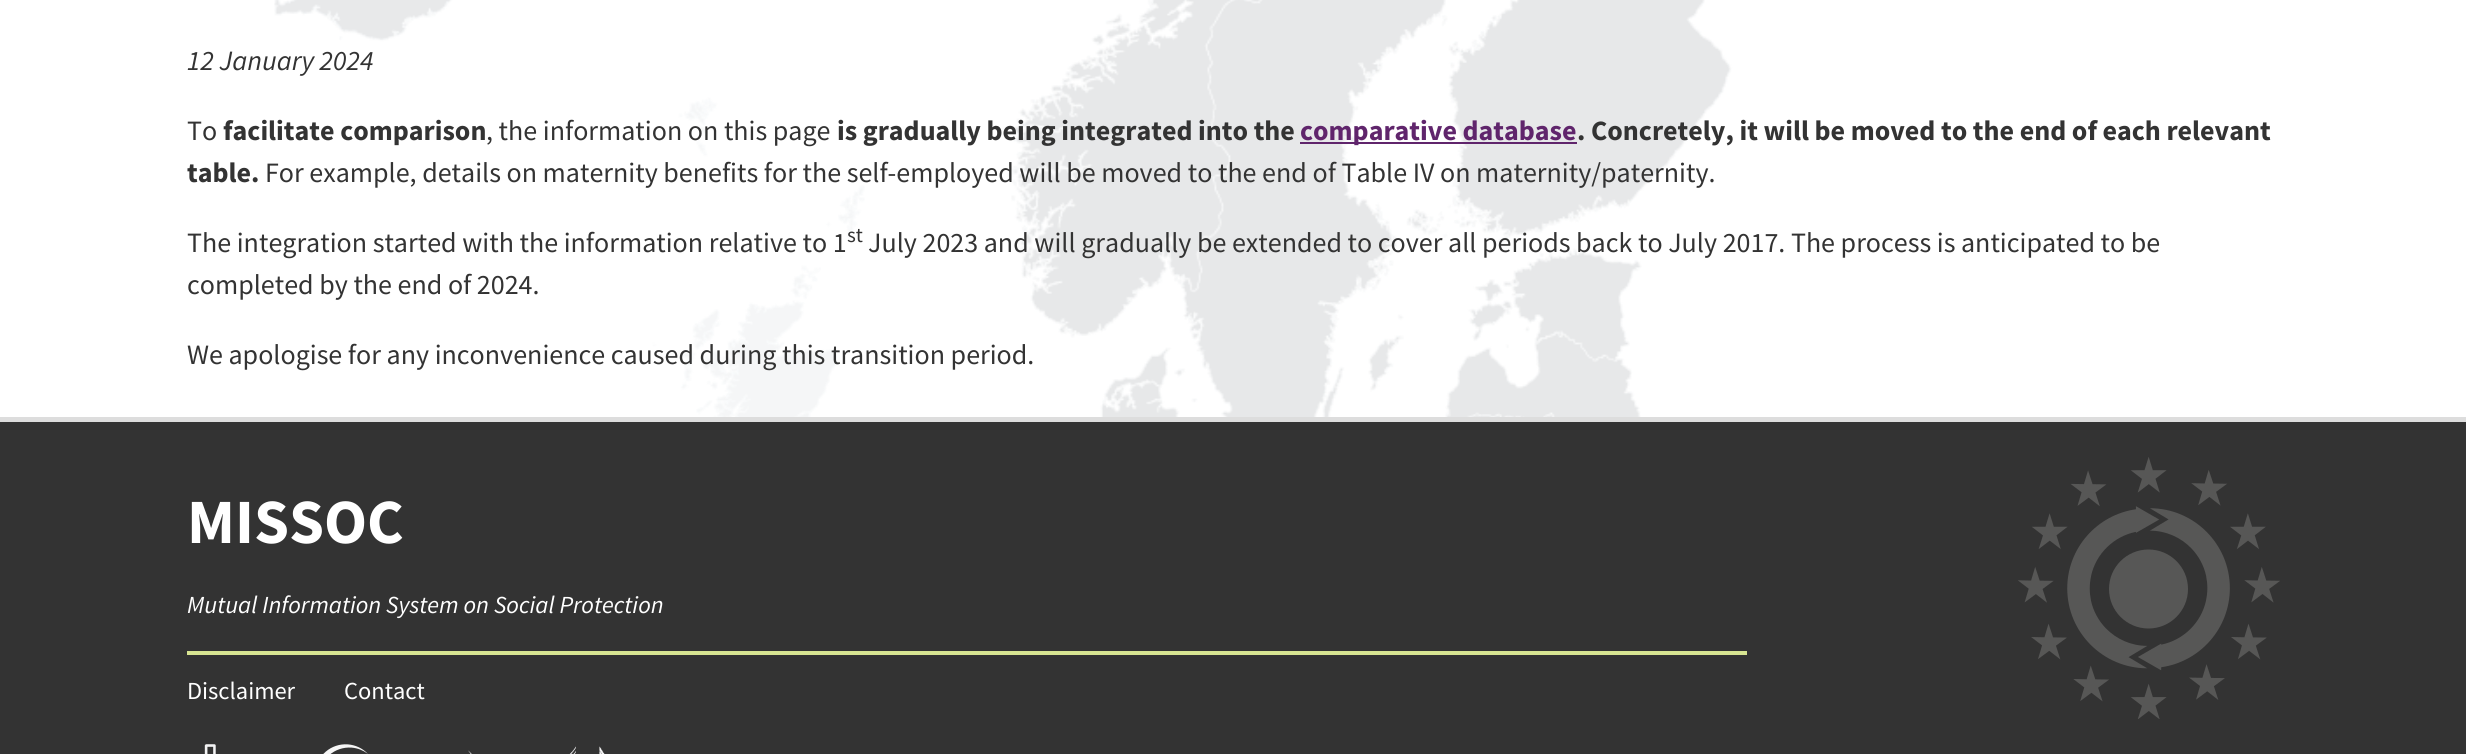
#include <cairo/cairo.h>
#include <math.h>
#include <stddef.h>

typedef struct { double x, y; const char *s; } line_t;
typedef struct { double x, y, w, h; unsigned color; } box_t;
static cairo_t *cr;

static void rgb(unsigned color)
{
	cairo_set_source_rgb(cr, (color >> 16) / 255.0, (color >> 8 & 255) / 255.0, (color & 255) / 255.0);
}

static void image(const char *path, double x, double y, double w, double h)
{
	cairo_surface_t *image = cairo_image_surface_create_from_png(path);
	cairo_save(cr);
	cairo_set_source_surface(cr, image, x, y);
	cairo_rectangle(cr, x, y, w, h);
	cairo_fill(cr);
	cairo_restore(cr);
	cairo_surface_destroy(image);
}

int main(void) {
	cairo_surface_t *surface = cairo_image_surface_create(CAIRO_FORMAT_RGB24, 2466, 754);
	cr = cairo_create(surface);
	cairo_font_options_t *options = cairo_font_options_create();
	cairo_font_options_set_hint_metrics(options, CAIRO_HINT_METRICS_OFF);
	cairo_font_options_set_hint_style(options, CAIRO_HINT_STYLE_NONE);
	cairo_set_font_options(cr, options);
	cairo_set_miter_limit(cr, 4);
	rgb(0xffffff);
	cairo_paint(cr);
	image("img/1.png", 274, 0, 1459, 417);
	{
		static const box_t items[] = {
			{1300, 142, 277, 2, 0x60256c},
			{0, 422, 2466, 332, 0x333333},
			{0, 417, 2466, 5, 0xdddddd},
			{187, 651, 1560, 4, 0xd8e592},
		};
		for (size_t i = 0; i < sizeof items / sizeof *items; i++) {
			rgb(items[i].color);
			cairo_rectangle(cr, items[i].x, items[i].y, items[i].w, items[i].h);
			cairo_fill(cr);
		}
	}
	image("img/2.png", 204, 744, 12, 10);
	image("img/3.png", 323, 744, 149, 10);
	image("img/4.png", 569, 746, 36, 8);
	image("img/5.png", 2018, 457, 262, 262);
	cairo_select_font_face(cr, "Source Sans Pro", CAIRO_FONT_SLANT_ITALIC, CAIRO_FONT_WEIGHT_NORMAL);
	cairo_set_font_size(cr, 28);
	rgb(0x333333);
	cairo_move_to(cr, 187, 70);
	cairo_show_text(cr, "12 January 2024");
	cairo_select_font_face(cr, "Source Sans Pro", CAIRO_FONT_SLANT_NORMAL, CAIRO_FONT_WEIGHT_NORMAL);
	cairo_move_to(cr, 187, 140);
	cairo_show_text(cr, "To");
	cairo_select_font_face(cr, "Source Sans Pro", CAIRO_FONT_SLANT_NORMAL, CAIRO_FONT_WEIGHT_BOLD);
	cairo_move_to(cr, 223, 140);
	cairo_show_text(cr, "facilitate comparison");
	cairo_select_font_face(cr, "Source Sans Pro", CAIRO_FONT_SLANT_NORMAL, CAIRO_FONT_WEIGHT_NORMAL);
	cairo_move_to(cr, 486, 140);
	cairo_show_text(cr, ", the information on this page");
	cairo_select_font_face(cr, "Source Sans Pro", CAIRO_FONT_SLANT_NORMAL, CAIRO_FONT_WEIGHT_BOLD);
	cairo_move_to(cr, 837, 140);
	cairo_show_text(cr, "is gradually being integrated into the");
	rgb(0x60256c);
	cairo_move_to(cr, 1300, 140);
	cairo_show_text(cr, "comparative database");
	rgb(0x333333);
	cairo_move_to(cr, 1577, 140);
	cairo_show_text(cr, ". Concretely, it will be moved to the end of each relevant");
	cairo_move_to(cr, 187, 182);
	cairo_show_text(cr, "table.");
	cairo_select_font_face(cr, "Source Sans Pro", CAIRO_FONT_SLANT_NORMAL, CAIRO_FONT_WEIGHT_NORMAL);
	cairo_move_to(cr, 265, 182);
	cairo_show_text(cr, "For example, details on maternity benefits for the self-employed will be moved to the end of Table IV on maternity/paternity.");
	cairo_move_to(cr, 187, 252);
	cairo_show_text(cr, "The integration started with the information relative to 1");
	cairo_set_font_size(cr, 21);
	cairo_move_to(cr, 847, 242);
	cairo_show_text(cr, "st");
	cairo_set_font_size(cr, 28);
	{
		static const line_t items[] = {
			{868, 252, "July 2023 and will gradually be extended to cover all periods back to July 2017. The process is anticipated to be"},
			{187, 294, "completed by the end of 2024."},
			{187, 364, "We apologise for any inconvenience caused during this transition period."},
		};
		for (size_t i = 0; i < sizeof items / sizeof *items; i++) {
			cairo_move_to(cr, items[i].x, items[i].y);
			cairo_show_text(cr, items[i].s);
		}
	}
	cairo_select_font_face(cr, "Source Sans Pro", CAIRO_FONT_SLANT_NORMAL, CAIRO_FONT_WEIGHT_BOLD);
	cairo_set_font_size(cr, 63);
	rgb(0xffffff);
	cairo_move_to(cr, 187, 543);
	cairo_show_text(cr, "MISSOC");
	cairo_select_font_face(cr, "Source Sans Pro", CAIRO_FONT_SLANT_ITALIC, CAIRO_FONT_WEIGHT_NORMAL);
	cairo_set_font_size(cr, 24.5);
	cairo_move_to(cr, 187, 613);
	cairo_show_text(cr, "Mutual Information System on Social Protection");
	cairo_select_font_face(cr, "Source Sans Pro", CAIRO_FONT_SLANT_NORMAL, CAIRO_FONT_WEIGHT_NORMAL);
	cairo_move_to(cr, 187, 699);
	cairo_show_text(cr, "Disclaimer");
	cairo_move_to(cr, 344, 699);
	cairo_show_text(cr, "Contact");
	cairo_surface_write_to_png(surface, "page.png");
	cairo_font_options_destroy(options);
	cairo_destroy(cr);
	cairo_surface_destroy(surface);
	return 0;
}
